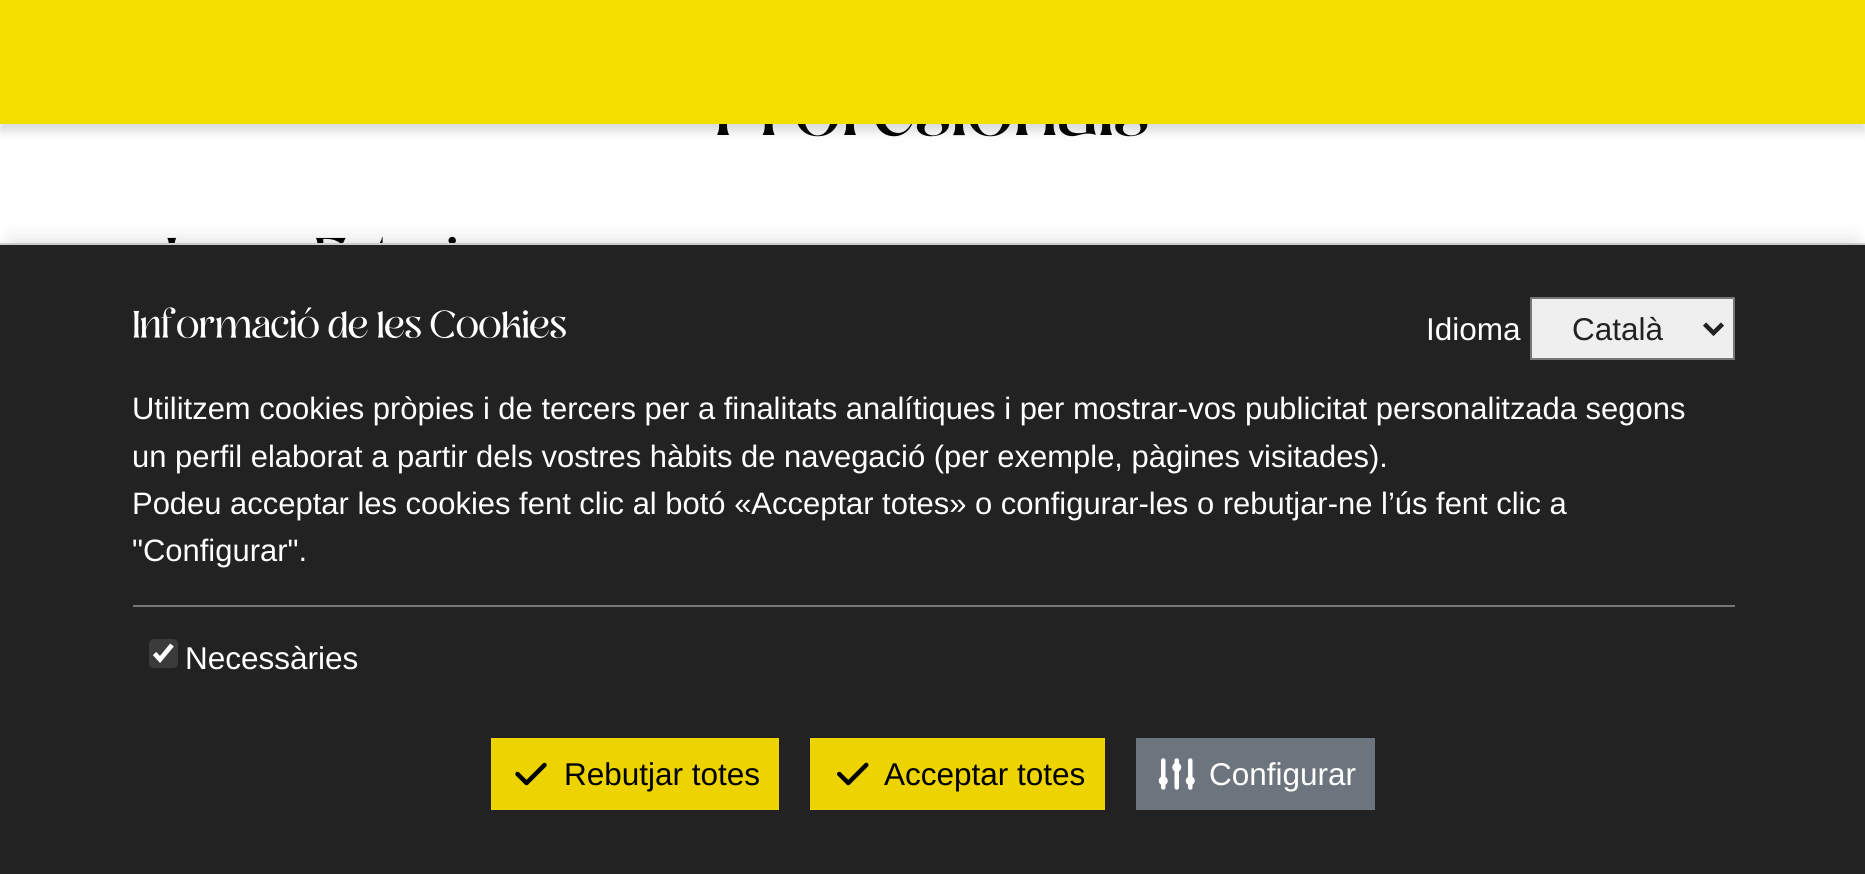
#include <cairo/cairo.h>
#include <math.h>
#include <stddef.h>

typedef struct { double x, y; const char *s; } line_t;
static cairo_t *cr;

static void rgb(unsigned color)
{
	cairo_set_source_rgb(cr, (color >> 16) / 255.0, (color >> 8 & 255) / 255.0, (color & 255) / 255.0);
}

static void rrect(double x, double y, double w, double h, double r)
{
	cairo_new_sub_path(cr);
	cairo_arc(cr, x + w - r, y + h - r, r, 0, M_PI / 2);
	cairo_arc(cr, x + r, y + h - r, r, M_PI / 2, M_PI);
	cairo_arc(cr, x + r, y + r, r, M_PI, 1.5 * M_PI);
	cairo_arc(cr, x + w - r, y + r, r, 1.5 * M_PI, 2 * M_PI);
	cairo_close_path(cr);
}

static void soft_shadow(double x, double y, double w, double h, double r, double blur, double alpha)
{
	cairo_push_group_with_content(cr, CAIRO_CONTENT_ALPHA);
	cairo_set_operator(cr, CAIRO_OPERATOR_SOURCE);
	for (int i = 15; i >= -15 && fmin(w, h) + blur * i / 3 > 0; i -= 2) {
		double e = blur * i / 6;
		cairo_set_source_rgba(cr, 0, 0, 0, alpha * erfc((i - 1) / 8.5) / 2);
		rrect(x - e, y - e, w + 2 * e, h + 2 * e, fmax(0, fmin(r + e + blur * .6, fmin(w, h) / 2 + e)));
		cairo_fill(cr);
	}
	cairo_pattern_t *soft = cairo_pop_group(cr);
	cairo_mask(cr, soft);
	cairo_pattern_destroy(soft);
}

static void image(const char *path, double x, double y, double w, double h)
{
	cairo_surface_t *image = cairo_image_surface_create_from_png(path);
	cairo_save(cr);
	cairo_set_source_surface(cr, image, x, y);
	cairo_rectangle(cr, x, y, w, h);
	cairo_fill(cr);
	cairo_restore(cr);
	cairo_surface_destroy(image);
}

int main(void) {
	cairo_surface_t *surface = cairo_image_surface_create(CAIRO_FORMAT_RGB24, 1865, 874);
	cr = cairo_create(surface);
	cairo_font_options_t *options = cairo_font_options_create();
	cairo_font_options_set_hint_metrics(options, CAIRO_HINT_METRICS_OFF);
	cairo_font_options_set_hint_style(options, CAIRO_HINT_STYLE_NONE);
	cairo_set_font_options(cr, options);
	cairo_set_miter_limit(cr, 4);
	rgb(0xffffff);
	cairo_paint(cr);
	image("img/1.png", 717, 124, 431, 13);
	rgb(0x393f48);
	soft_shadow(0, 7, 1865, 124, 0, 5.5, 0.2);
	rgb(0xf2df00);
	cairo_rectangle(cr, 0, 0, 1865, 124);
	cairo_fill(cr);
	image("img/2.png", 167, 236, 289, 7);
	rgb(0x000000);
	soft_shadow(11, 243, 1843, 610, 0, 11, 0.16);
	rgb(0x222222);
	cairo_rectangle(cr, 0, 245, 1865, 629);
	cairo_fill(cr);
	rgb(0xcccccc);
	cairo_rectangle(cr, 0, 243, 1865, 2);
	cairo_fill(cr);
	image("img/3.png", 133, 307, 433, 32);
	rgb(0xefefef);
	cairo_rectangle(cr, 1531, 298, 203, 61);
	cairo_fill_preserve(cr);
	rgb(0x777777);
	cairo_stroke(cr);
	cairo_new_path(cr);
	cairo_move_to(cr, 1704.5, 324);
	cairo_line_to(cr, 1713.5, 333);
	cairo_line_to(cr, 1722.5, 324);
	rgb(0x222222);
	cairo_set_line_width(cr, 4.5);
	cairo_stroke(cr);
	rgb(0x777777);
	cairo_rectangle(cr, 133, 605, 1602, 2);
	cairo_fill(cr);
	rgb(0x3b3b3b);
	rrect(149, 639, 29, 29, 5);
	cairo_fill(cr);
	cairo_new_path(cr);
	cairo_move_to(cr, 154.5, 653.5);
	cairo_line_to(cr, 160, 659.5);
	cairo_line_to(cr, 172, 645);
	rgb(0xffffff);
	cairo_set_line_width(cr, 4.7);
	cairo_stroke(cr);
	rgb(0xedd400);
	cairo_rectangle(cr, 491, 738, 288, 72);
	cairo_fill(cr);
	image("img/4.png", 515, 762, 32, 24);
	cairo_rectangle(cr, 810, 738, 295, 72);
	cairo_fill(cr);
	image("img/5.png", 837, 762, 32, 24);
	rgb(0x6c757d);
	cairo_rectangle(cr, 1136, 738, 239, 72);
	cairo_fill(cr);
	image("img/6.png", 1158, 758, 37, 32);
	cairo_select_font_face(cr, "Liberation Sans", CAIRO_FONT_SLANT_NORMAL, CAIRO_FONT_WEIGHT_NORMAL);
	cairo_set_font_size(cr, 31.5);
	rgb(0xffffff);
	cairo_move_to(cr, 1426, 340);
	cairo_show_text(cr, "Idioma");
	rgb(0x222222);
	cairo_move_to(cr, 1572, 340);
	cairo_show_text(cr, "Català");
	cairo_set_font_size(cr, 30.95);
	rgb(0xffffff);
	{
		static const line_t items[] = {
			{132, 419, "Utilitzem cookies pròpies i de tercers per a finalitats analítiques i per mostrar-vos publicitat personalitzada segons"},
			{132, 467, "un perfil elaborat a partir dels vostres hàbits de navegació (per exemple, pàgines visitades)."},
			{132, 514, "Podeu acceptar les cookies fent clic al botó «Acceptar totes» o configurar-les o rebutjar-ne l’ús fent clic a"},
			{132, 561, "\"Configurar\"."},
		};
		for (size_t i = 0; i < sizeof items / sizeof *items; i++) {
			cairo_move_to(cr, items[i].x, items[i].y);
			cairo_show_text(cr, items[i].s);
		}
	}
	cairo_set_font_size(cr, 31.5);
	cairo_move_to(cr, 185, 669);
	cairo_show_text(cr, "Necessàries");
	rgb(0x000000);
	cairo_move_to(cr, 564, 785);
	cairo_show_text(cr, "Rebutjar totes");
	cairo_move_to(cr, 884, 785);
	cairo_show_text(cr, "Acceptar totes");
	rgb(0xffffff);
	cairo_move_to(cr, 1209, 785);
	cairo_show_text(cr, "Configurar");
	cairo_surface_write_to_png(surface, "page.png");
	cairo_font_options_destroy(options);
	cairo_destroy(cr);
	cairo_surface_destroy(surface);
	return 0;
}
